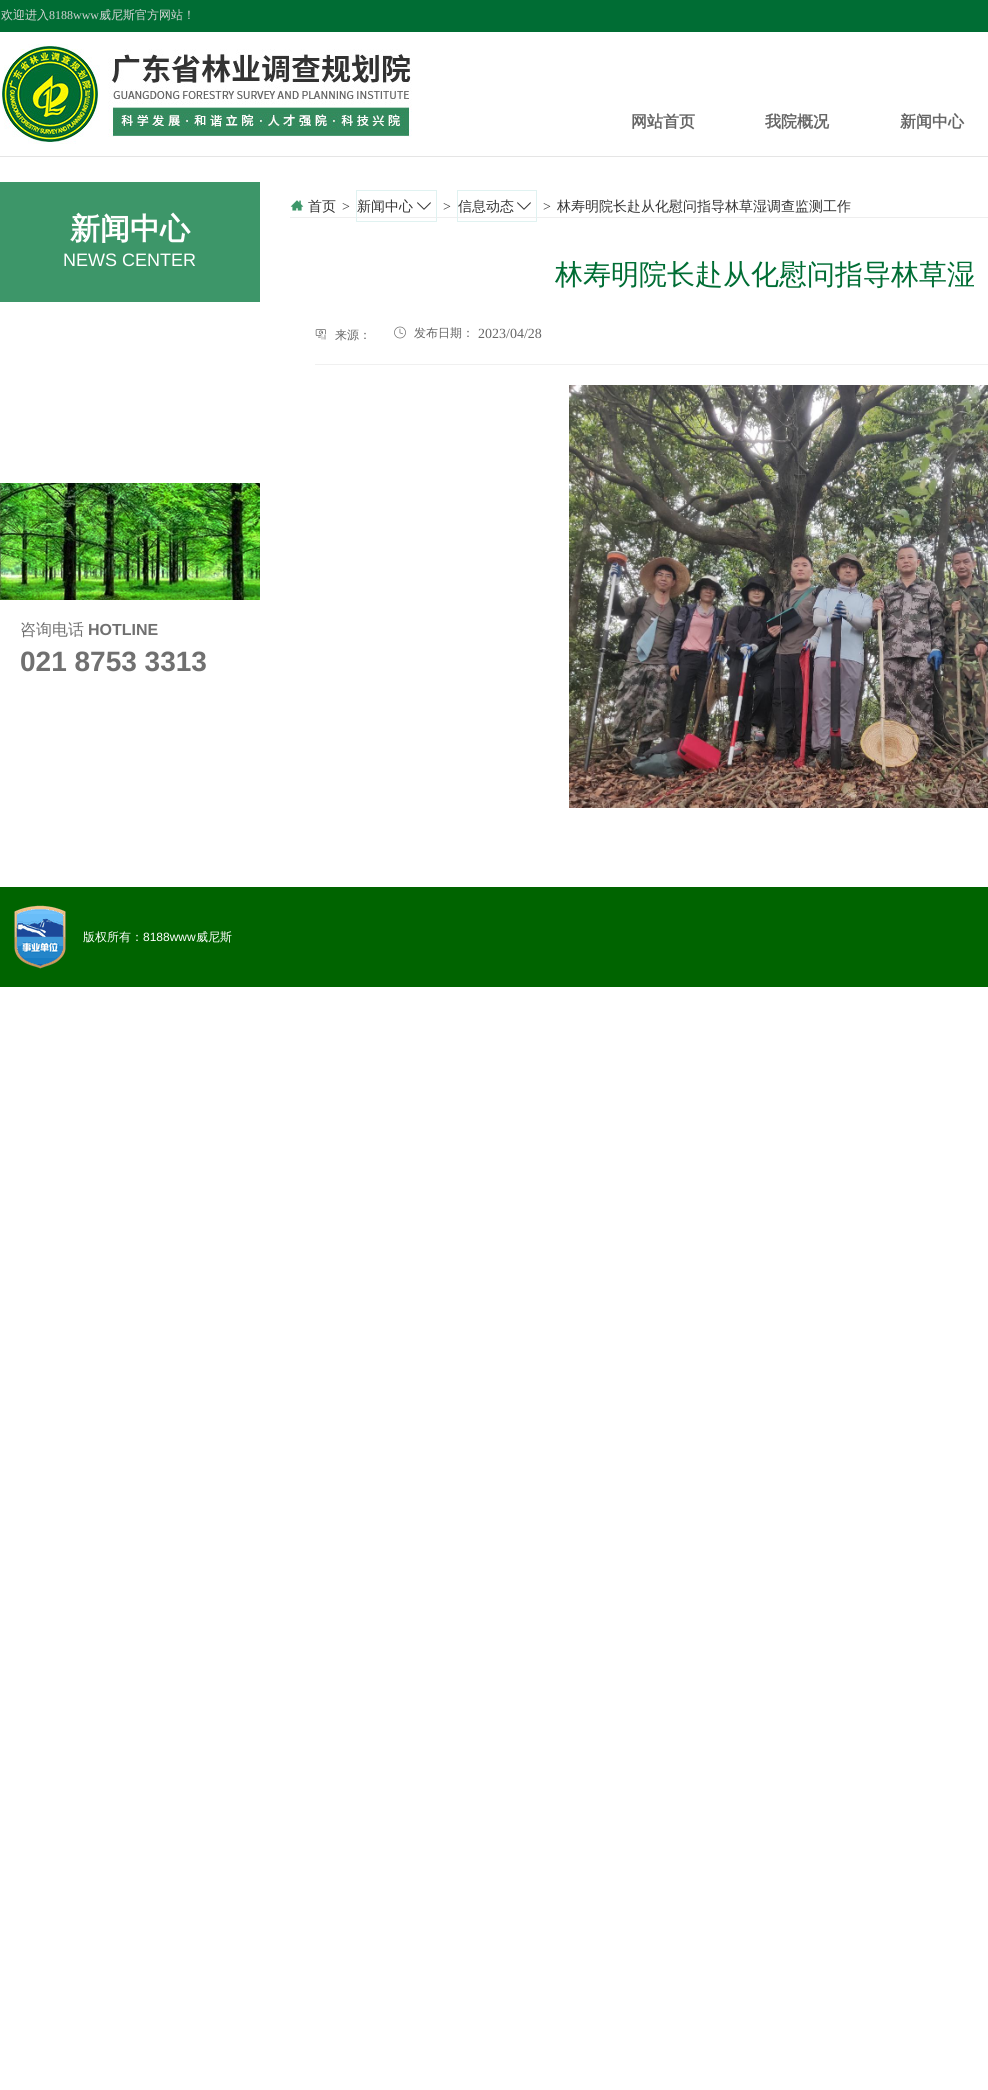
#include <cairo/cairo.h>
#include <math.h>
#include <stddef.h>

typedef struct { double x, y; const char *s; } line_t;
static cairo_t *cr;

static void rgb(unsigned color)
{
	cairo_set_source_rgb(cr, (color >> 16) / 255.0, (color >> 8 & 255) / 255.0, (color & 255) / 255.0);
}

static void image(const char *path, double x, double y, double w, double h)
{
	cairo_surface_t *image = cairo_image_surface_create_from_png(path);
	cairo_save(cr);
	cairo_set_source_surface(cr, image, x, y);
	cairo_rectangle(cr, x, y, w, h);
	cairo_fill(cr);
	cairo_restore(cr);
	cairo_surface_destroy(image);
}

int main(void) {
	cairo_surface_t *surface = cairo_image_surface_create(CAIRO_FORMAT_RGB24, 988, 2090);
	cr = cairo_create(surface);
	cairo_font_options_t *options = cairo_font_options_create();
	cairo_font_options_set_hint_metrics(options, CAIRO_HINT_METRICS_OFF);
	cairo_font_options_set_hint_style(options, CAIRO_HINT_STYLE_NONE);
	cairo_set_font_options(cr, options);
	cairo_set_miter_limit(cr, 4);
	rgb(0xffffff);
	cairo_paint(cr);
	rgb(0x006d34);
	cairo_rectangle(cr, 0, 0, 988, 32);
	cairo_fill(cr);
	rgb(0xe5e5e5);
	cairo_rectangle(cr, 0, 156, 988, 1);
	cairo_fill(cr);
	image("img/1.png", 0, 44, 412, 100);
	rgb(0xeeeeee);
	cairo_rectangle(cr, 290, 217, 698, 1);
	cairo_fill(cr);
	image("img/2.png", 290, 200, 14, 11);
	cairo_rectangle(cr, 356.5, 190.5, 80, 31);
	rgb(0xe0f2f1);
	cairo_set_line_width(cr, 1);
	cairo_stroke(cr);
	image("img/3.png", 417, 202, 14, 8);
	cairo_rectangle(cr, 457.5, 190.5, 79, 31);
	cairo_stroke(cr);
	image("img/3.png", 517, 202, 14, 8);
	rgb(0x3d9669);
	cairo_rectangle(cr, 0, 182, 260, 120);
	cairo_fill(cr);
	image("img/4.png", 315, 329, 11, 11);
	image("img/5.png", 394, 326, 12, 13);
	rgb(0xf0f0f0);
	cairo_rectangle(cr, 315, 364, 673, 1);
	cairo_fill(cr);
	image("img/6.png", 569, 385, 419, 423);
	image("img/7.png", 0, 483, 260, 117);
	rgb(0x006400);
	cairo_rectangle(cr, 0, 887, 988, 100);
	cairo_fill(cr);
	image("img/8.png", 14, 905, 52, 64);
	cairo_select_font_face(cr, "WenQuanYi Zen Hei Medium", CAIRO_FONT_SLANT_NORMAL, CAIRO_FONT_WEIGHT_NORMAL);
	cairo_set_font_size(cr, 12);
	rgb(0xd3d3d3);
	cairo_move_to(cr, 1, 19);
	cairo_show_text(cr, "欢迎进入");
	cairo_select_font_face(cr, "Liberation Serif", CAIRO_FONT_SLANT_NORMAL, CAIRO_FONT_WEIGHT_NORMAL);
	cairo_move_to(cr, 49, 19);
	cairo_show_text(cr, "8188www");
	cairo_select_font_face(cr, "WenQuanYi Zen Hei Medium", CAIRO_FONT_SLANT_NORMAL, CAIRO_FONT_WEIGHT_NORMAL);
	cairo_move_to(cr, 99, 19);
	cairo_show_text(cr, "威尼斯官方网站！");
	cairo_select_font_face(cr, "WenQuanYi Zen Hei", CAIRO_FONT_SLANT_NORMAL, CAIRO_FONT_WEIGHT_BOLD);
	cairo_set_font_size(cr, 16);
	rgb(0x666666);
	{
		static const line_t items[] = {
			{631, 127, "网站首页"},
			{765, 127, "我院概况"},
			{900, 127, "新闻中心"},
		};
		for (size_t i = 0; i < sizeof items / sizeof *items; i++) {
			cairo_move_to(cr, items[i].x, items[i].y);
			cairo_show_text(cr, items[i].s);
		}
	}
	cairo_select_font_face(cr, "WenQuanYi Zen Hei Medium", CAIRO_FONT_SLANT_NORMAL, CAIRO_FONT_WEIGHT_NORMAL);
	cairo_set_font_size(cr, 14);
	rgb(0x333333);
	cairo_move_to(cr, 308, 211);
	cairo_show_text(cr, "首页");
	cairo_select_font_face(cr, "Liberation Serif", CAIRO_FONT_SLANT_NORMAL, CAIRO_FONT_WEIGHT_NORMAL);
	cairo_move_to(cr, 342, 211);
	cairo_show_text(cr, ">");
	cairo_select_font_face(cr, "WenQuanYi Zen Hei Medium", CAIRO_FONT_SLANT_NORMAL, CAIRO_FONT_WEIGHT_NORMAL);
	cairo_move_to(cr, 357, 211);
	cairo_show_text(cr, "新闻中心");
	cairo_select_font_face(cr, "Liberation Serif", CAIRO_FONT_SLANT_NORMAL, CAIRO_FONT_WEIGHT_NORMAL);
	cairo_move_to(cr, 443, 211);
	cairo_show_text(cr, ">");
	cairo_select_font_face(cr, "WenQuanYi Zen Hei Medium", CAIRO_FONT_SLANT_NORMAL, CAIRO_FONT_WEIGHT_NORMAL);
	cairo_move_to(cr, 458, 211);
	cairo_show_text(cr, "信息动态");
	cairo_select_font_face(cr, "Liberation Serif", CAIRO_FONT_SLANT_NORMAL, CAIRO_FONT_WEIGHT_NORMAL);
	cairo_move_to(cr, 543, 211);
	cairo_show_text(cr, ">");
	cairo_select_font_face(cr, "WenQuanYi Zen Hei Medium", CAIRO_FONT_SLANT_NORMAL, CAIRO_FONT_WEIGHT_NORMAL);
	cairo_move_to(cr, 557, 211);
	cairo_show_text(cr, "林寿明院长赴从化慰问指导林草湿调查监测工作");
	cairo_select_font_face(cr, "WenQuanYi Zen Hei", CAIRO_FONT_SLANT_NORMAL, CAIRO_FONT_WEIGHT_BOLD);
	cairo_set_font_size(cr, 30);
	rgb(0xffffff);
	cairo_move_to(cr, 70, 239);
	cairo_show_text(cr, "新闻中心");
	cairo_select_font_face(cr, "Liberation Sans", CAIRO_FONT_SLANT_NORMAL, CAIRO_FONT_WEIGHT_NORMAL);
	cairo_set_font_size(cr, 18);
	cairo_move_to(cr, 63, 266);
	cairo_show_text(cr, "NEWS CENTER");
	cairo_select_font_face(cr, "WenQuanYi Zen Hei Medium", CAIRO_FONT_SLANT_NORMAL, CAIRO_FONT_WEIGHT_NORMAL);
	cairo_set_font_size(cr, 28);
	rgb(0x006d34);
	cairo_move_to(cr, 555, 284);
	cairo_show_text(cr, "林寿明院长赴从化慰问指导林草湿");
	cairo_set_font_size(cr, 12);
	rgb(0x666666);
	cairo_move_to(cr, 335, 339);
	cairo_show_text(cr, "来源：");
	cairo_move_to(cr, 414, 337);
	cairo_show_text(cr, "发布日期：");
	cairo_select_font_face(cr, "Liberation Serif", CAIRO_FONT_SLANT_NORMAL, CAIRO_FONT_WEIGHT_NORMAL);
	cairo_set_font_size(cr, 14);
	cairo_move_to(cr, 478, 338);
	cairo_show_text(cr, "2023/04/28");
	cairo_select_font_face(cr, "WenQuanYi Zen Hei Medium", CAIRO_FONT_SLANT_NORMAL, CAIRO_FONT_WEIGHT_NORMAL);
	cairo_set_font_size(cr, 16);
	rgb(0x707070);
	cairo_move_to(cr, 20, 635);
	cairo_show_text(cr, "咨询电话");
	cairo_select_font_face(cr, "Liberation Sans", CAIRO_FONT_SLANT_NORMAL, CAIRO_FONT_WEIGHT_BOLD);
	cairo_move_to(cr, 88, 635);
	cairo_show_text(cr, "HOTLINE");
	cairo_set_font_size(cr, 28);
	cairo_move_to(cr, 20, 671);
	cairo_show_text(cr, "021 8753 3313");
	cairo_select_font_face(cr, "WenQuanYi Zen Hei Medium", CAIRO_FONT_SLANT_NORMAL, CAIRO_FONT_WEIGHT_NORMAL);
	cairo_set_font_size(cr, 12);
	rgb(0xffffff);
	cairo_move_to(cr, 83, 941);
	cairo_show_text(cr, "版权所有：");
	cairo_select_font_face(cr, "Liberation Sans", CAIRO_FONT_SLANT_NORMAL, CAIRO_FONT_WEIGHT_NORMAL);
	cairo_move_to(cr, 143, 941);
	cairo_show_text(cr, "8188www");
	cairo_select_font_face(cr, "WenQuanYi Zen Hei Medium", CAIRO_FONT_SLANT_NORMAL, CAIRO_FONT_WEIGHT_NORMAL);
	cairo_move_to(cr, 196, 941);
	cairo_show_text(cr, "威尼斯");
	cairo_surface_write_to_png(surface, "page.png");
	cairo_font_options_destroy(options);
	cairo_destroy(cr);
	cairo_surface_destroy(surface);
	return 0;
}
